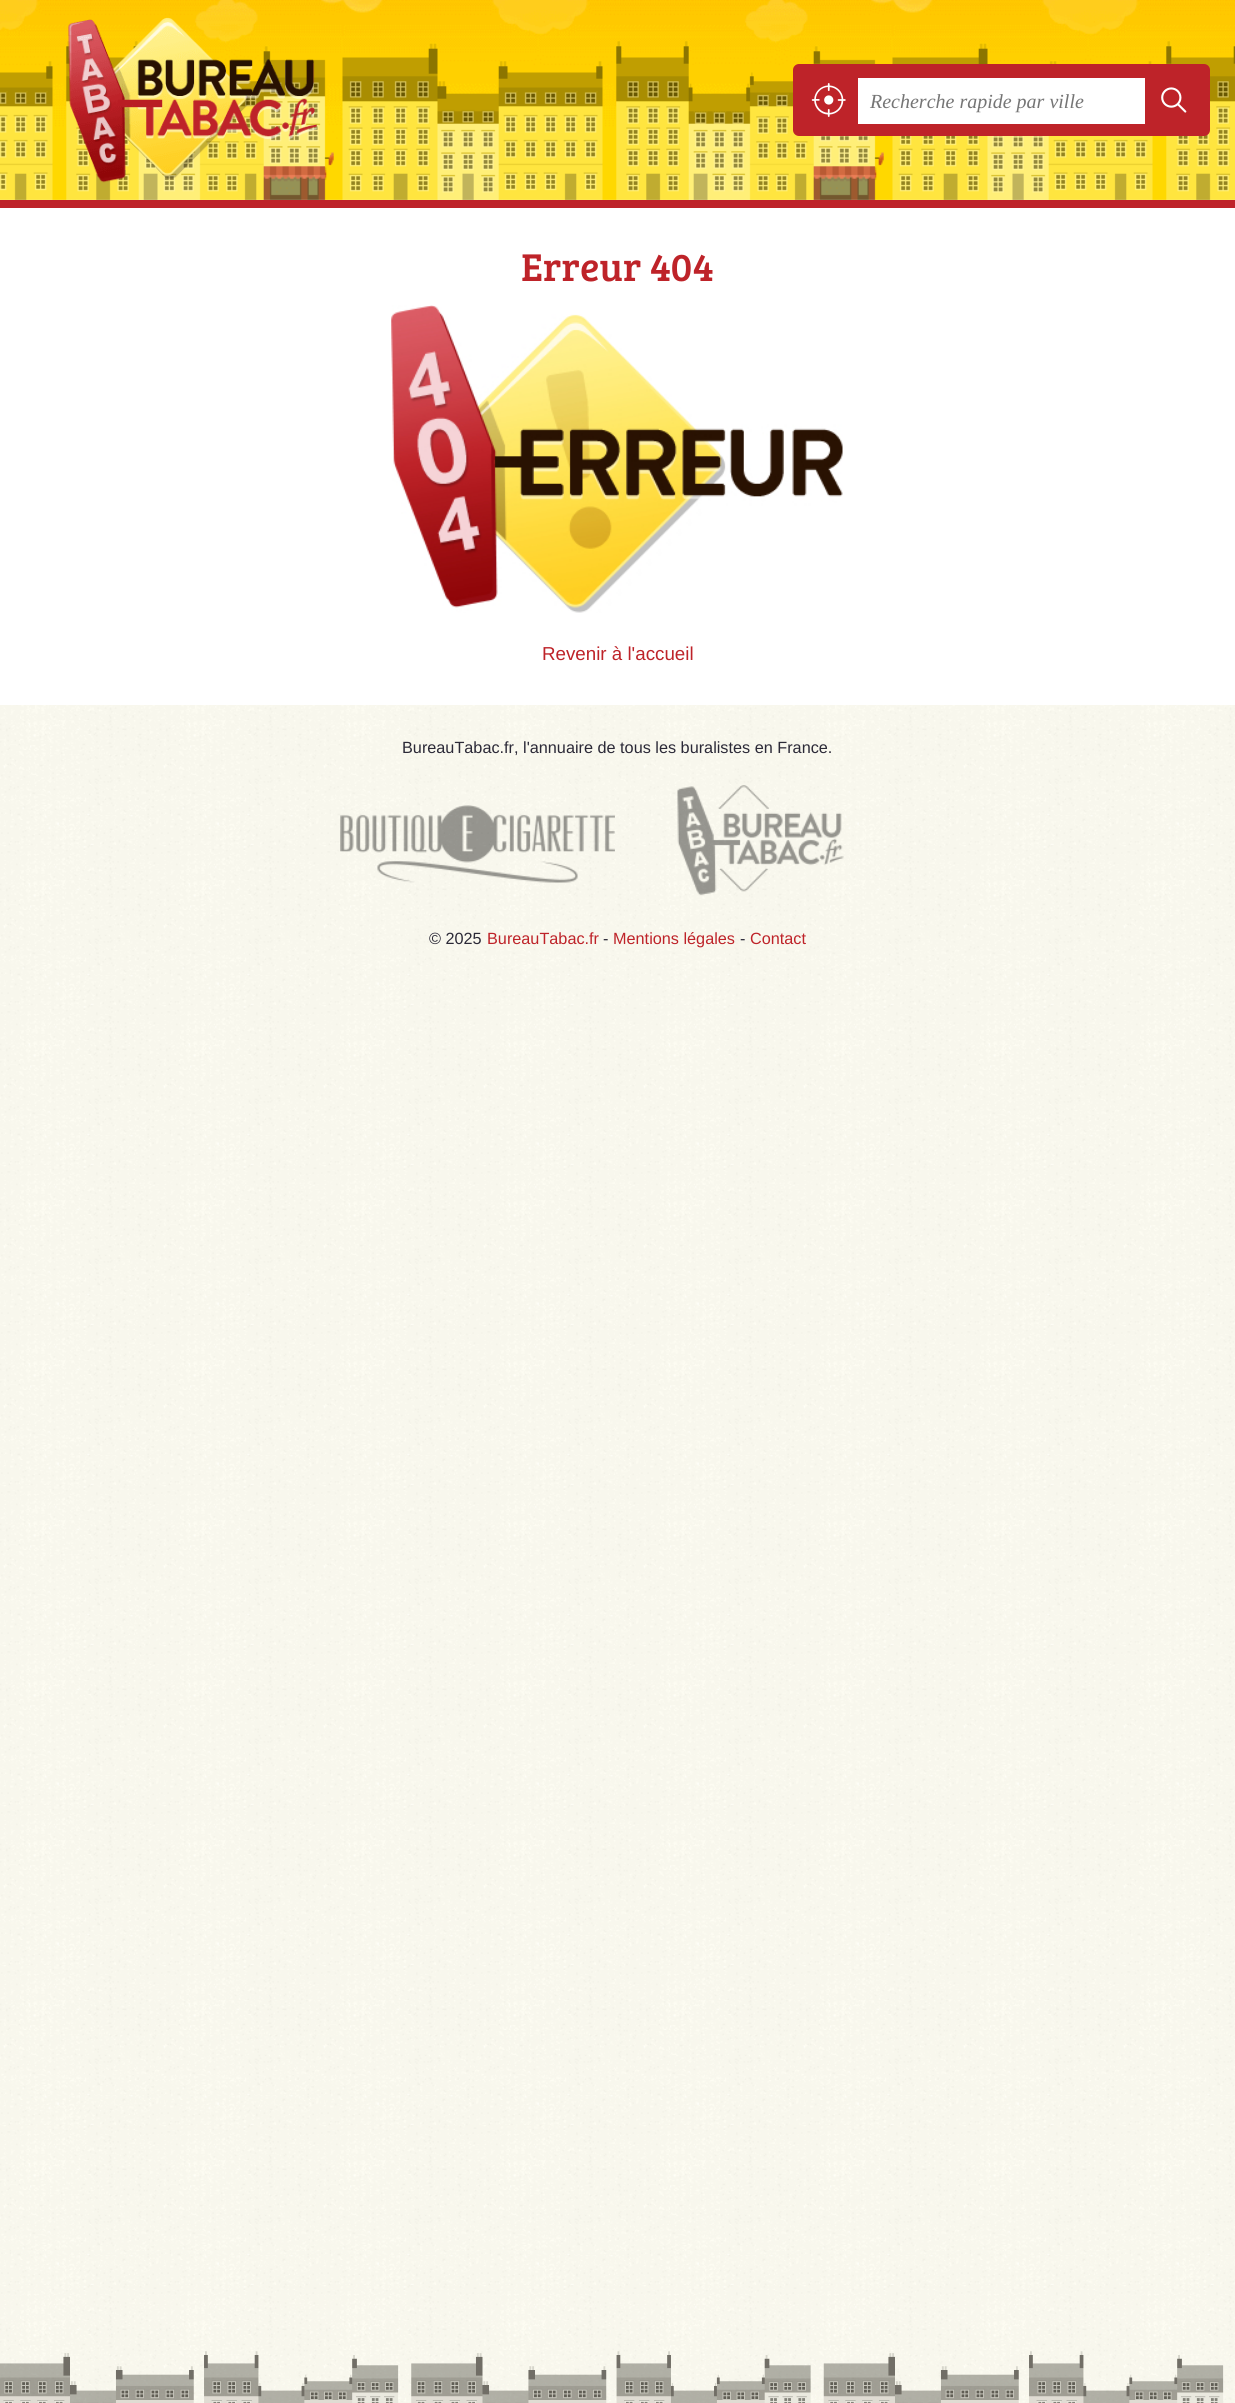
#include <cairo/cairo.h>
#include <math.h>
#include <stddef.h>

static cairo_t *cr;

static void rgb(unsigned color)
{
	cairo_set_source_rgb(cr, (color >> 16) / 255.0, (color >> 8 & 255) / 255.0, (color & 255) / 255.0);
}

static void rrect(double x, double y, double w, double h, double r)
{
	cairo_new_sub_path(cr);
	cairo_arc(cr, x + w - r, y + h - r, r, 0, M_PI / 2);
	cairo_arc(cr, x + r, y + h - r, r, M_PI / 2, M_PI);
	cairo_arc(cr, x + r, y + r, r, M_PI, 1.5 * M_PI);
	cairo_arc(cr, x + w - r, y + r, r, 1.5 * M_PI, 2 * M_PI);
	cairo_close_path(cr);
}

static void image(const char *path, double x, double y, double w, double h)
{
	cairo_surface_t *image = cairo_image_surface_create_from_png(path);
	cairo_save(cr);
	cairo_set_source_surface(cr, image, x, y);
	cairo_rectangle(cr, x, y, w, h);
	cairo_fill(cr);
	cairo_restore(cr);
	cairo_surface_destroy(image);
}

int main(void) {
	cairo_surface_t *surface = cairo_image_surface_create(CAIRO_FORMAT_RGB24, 1235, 2403);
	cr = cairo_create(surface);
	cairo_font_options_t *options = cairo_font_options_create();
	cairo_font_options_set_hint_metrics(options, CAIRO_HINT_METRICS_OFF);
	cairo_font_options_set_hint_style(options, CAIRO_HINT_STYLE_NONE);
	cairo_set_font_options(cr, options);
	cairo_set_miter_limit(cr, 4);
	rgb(0xffffff);
	cairo_paint(cr);
	image("img/1.png", 0, 981, 1235, 1422);
	image("img/2.png", 0, 199, 1235, 782);
	image("img/3.png", 0, 0, 1235, 200);
	rgb(0xbe2329);
	cairo_rectangle(cr, 0, 200, 1235, 8);
	cairo_fill(cr);
	image("img/4.png", 68, 17, 249, 166);
	rrect(793, 64, 417, 72, 6);
	cairo_fill(cr);
	image("img/5.png", 811, 83, 35, 34);
	rgb(0xffffff);
	cairo_rectangle(cr, 858, 78, 287, 46);
	cairo_fill(cr);
	image("img/6.png", 1161, 87, 26, 26);
	cairo_rectangle(cr, 0, 208, 1235, 497);
	cairo_fill(cr);
	image("img/7.png", 391, 305, 452, 308);
	image("img/8.png", 340, 805, 275, 78);
	image("img/9.png", 677, 785, 167, 111);
	image("img/10.png", 0, 2351, 1224, 52);
	cairo_select_font_face(cr, "Liberation Serif", CAIRO_FONT_SLANT_ITALIC, CAIRO_FONT_WEIGHT_NORMAL);
	cairo_set_font_size(cr, 20);
	rgb(0x757575);
	cairo_move_to(cr, 870, 108);
	cairo_show_text(cr, "Recherche rapide par ville");
	cairo_select_font_face(cr, "Bree Serif", CAIRO_FONT_SLANT_NORMAL, CAIRO_FONT_WEIGHT_NORMAL);
	cairo_set_font_size(cr, 40);
	rgb(0xbe2329);
	cairo_move_to(cr, 521, 281);
	cairo_show_text(cr, "Erreur 404");
	cairo_select_font_face(cr, "Liberation Sans", CAIRO_FONT_SLANT_NORMAL, CAIRO_FONT_WEIGHT_NORMAL);
	cairo_set_font_size(cr, 18.75);
	cairo_move_to(cr, 542, 660);
	cairo_show_text(cr, "Revenir à l'accueil");
	cairo_set_font_size(cr, 16.25);
	rgb(0x2b2937);
	cairo_move_to(cr, 402, 753);
	cairo_show_text(cr, "BureauTabac.fr, l'annuaire de tous les buralistes en France.");
	cairo_move_to(cr, 429, 944);
	cairo_show_text(cr, "© 2025");
	rgb(0xbe2329);
	cairo_move_to(cr, 487, 944);
	cairo_show_text(cr, "BureauTabac.fr");
	rgb(0x2b2937);
	cairo_move_to(cr, 603, 944);
	cairo_show_text(cr, "-");
	rgb(0xbe2329);
	cairo_move_to(cr, 613, 944);
	cairo_show_text(cr, "Mentions légales");
	rgb(0x2b2937);
	cairo_move_to(cr, 740, 944);
	cairo_show_text(cr, "-");
	rgb(0xbe2329);
	cairo_move_to(cr, 750, 944);
	cairo_show_text(cr, "Contact");
	cairo_surface_write_to_png(surface, "page.png");
	cairo_font_options_destroy(options);
	cairo_destroy(cr);
	cairo_surface_destroy(surface);
	return 0;
}
